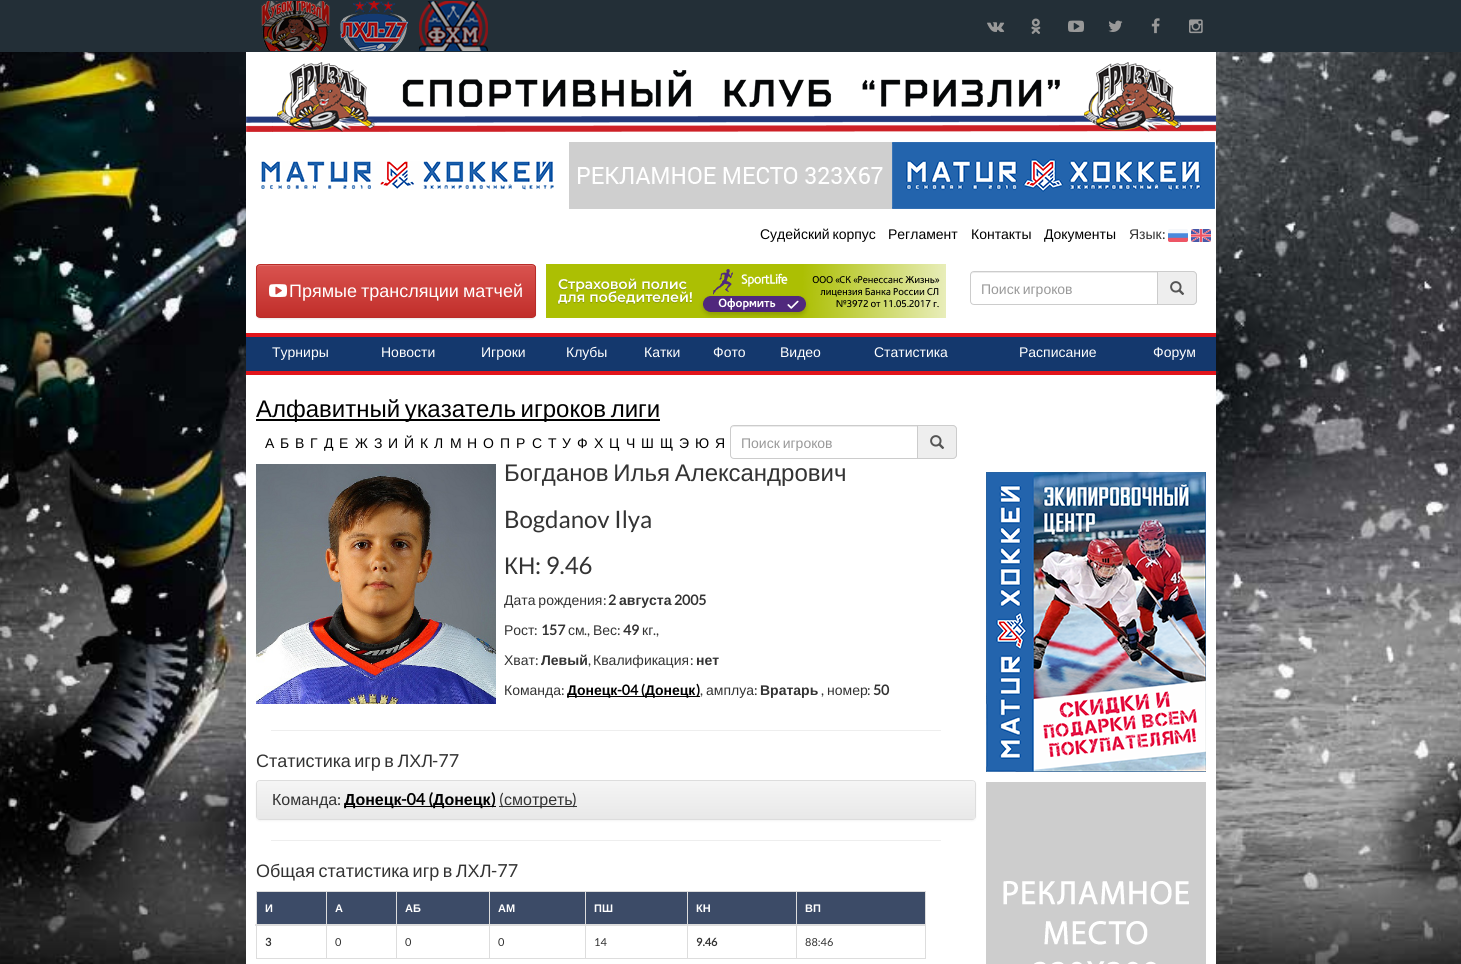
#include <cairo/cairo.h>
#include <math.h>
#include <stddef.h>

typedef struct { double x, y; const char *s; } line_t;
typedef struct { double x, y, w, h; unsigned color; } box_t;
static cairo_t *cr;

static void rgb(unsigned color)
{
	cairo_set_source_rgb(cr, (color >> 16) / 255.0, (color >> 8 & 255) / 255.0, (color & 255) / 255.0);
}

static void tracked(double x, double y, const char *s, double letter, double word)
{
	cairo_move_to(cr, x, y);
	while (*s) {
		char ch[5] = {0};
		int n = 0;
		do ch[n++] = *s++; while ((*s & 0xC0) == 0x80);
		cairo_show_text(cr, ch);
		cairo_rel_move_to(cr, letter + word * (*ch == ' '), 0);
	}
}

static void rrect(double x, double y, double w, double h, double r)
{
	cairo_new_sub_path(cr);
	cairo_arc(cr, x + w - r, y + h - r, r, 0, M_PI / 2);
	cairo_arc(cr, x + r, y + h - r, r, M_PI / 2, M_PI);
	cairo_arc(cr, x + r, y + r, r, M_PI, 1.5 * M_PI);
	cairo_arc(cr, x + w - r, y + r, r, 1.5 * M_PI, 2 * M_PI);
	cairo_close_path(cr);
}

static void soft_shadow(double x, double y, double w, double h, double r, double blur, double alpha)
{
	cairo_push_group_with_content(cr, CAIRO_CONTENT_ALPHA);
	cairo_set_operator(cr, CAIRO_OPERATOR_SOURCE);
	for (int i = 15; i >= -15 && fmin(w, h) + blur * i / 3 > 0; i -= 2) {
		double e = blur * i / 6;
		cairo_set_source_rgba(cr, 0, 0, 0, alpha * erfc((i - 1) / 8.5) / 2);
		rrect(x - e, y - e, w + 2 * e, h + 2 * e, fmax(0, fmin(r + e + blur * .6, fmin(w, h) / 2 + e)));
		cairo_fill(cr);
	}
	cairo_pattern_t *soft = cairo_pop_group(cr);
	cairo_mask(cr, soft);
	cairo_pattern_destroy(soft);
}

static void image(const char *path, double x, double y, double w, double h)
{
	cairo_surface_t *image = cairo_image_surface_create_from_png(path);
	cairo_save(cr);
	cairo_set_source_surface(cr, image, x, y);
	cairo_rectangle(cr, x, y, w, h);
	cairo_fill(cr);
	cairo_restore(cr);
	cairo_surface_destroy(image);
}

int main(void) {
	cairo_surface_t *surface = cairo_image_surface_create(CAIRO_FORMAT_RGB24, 1461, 964);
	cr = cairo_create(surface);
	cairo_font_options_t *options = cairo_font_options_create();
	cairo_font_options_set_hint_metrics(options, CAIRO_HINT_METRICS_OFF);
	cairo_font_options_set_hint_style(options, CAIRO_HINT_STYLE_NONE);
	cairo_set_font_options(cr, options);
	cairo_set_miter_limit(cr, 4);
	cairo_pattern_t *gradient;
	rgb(0xffffff);
	cairo_paint(cr);
	image("img/1.png", 0, 52, 1461, 912);
	rgb(0x232f37);
	cairo_rectangle(cr, 0, 0, 1461, 52);
	cairo_fill(cr);
	image("img/2.png", 261, 1, 69, 50);
	image("img/3.png", 340, 1, 69, 50);
	image("img/4.png", 419, 1, 69, 50);
	image("img/5.png", 987, 22, 18, 10);
	image("img/6.png", 1031, 18, 10, 16);
	image("img/7.png", 1068, 20, 16, 12);
	image("img/8.png", 1108, 20, 15, 12);
	image("img/9.png", 1151, 18, 9, 16);
	image("img/10.png", 1189, 19, 14, 15);
	rgb(0xffffff);
	cairo_rectangle(cr, 246, 52, 970, 912);
	cairo_fill(cr);
	image("img/11.png", 246, 62, 970, 70);
	image("img/12.png", 261, 161, 293, 29);
	image("img/13.png", 569, 142, 323, 67);
	image("img/14.png", 892, 142, 323, 67);
	image("img/15.png", 1168, 229, 20, 13);
	image("img/16.png", 1191, 229, 20, 13);
	rgb(0x000000);
	soft_shadow(256, 265, 280, 54, 4, 0.5, 0.07);
	cairo_save(cr);
	rrect(256, 264, 280, 54, 4);
	cairo_clip(cr);
	gradient = cairo_pattern_create_linear(396, 265, 396, 317);
	cairo_pattern_add_color_stop_rgba(gradient, 0, 0.851, 0.325, 0.31, 1);
	cairo_pattern_add_color_stop_rgba(gradient, 1, 0.757, 0.18, 0.165, 1);
	cairo_set_source(cr, gradient);
	cairo_pattern_destroy(gradient);
	cairo_rectangle(cr, 256, 265, 280, 52);
	cairo_fill(cr);
	cairo_restore(cr);
	rgb(0xdf6d69);
	cairo_new_path(cr);
	cairo_move_to(cr, 260, 266);
	cairo_line_to(cr, 532, 266);
	cairo_curve_to(cr, 534, 266, 535, 267, 535, 269);
	cairo_line_to(cr, 535, 268);
	cairo_curve_to(cr, 535, 266, 534, 265, 532, 265);
	cairo_line_to(cr, 260, 265);
	cairo_curve_to(cr, 258, 265, 257, 266, 257, 268);
	cairo_line_to(cr, 257, 269);
	cairo_curve_to(cr, 257, 267, 258, 266, 260, 266);
	cairo_close_path(cr);
	cairo_fill(cr);
	rrect(256.5, 264.5, 279, 53, 3.5);
	rgb(0xb92c28);
	cairo_set_line_width(cr, 1);
	cairo_stroke(cr);
	image("img/17.png", 269, 284, 18, 13);
	image("img/18.png", 546, 264, 400, 54);
	rgb(0xececec);
	cairo_new_path(cr);
	cairo_move_to(cr, 974, 273);
	cairo_line_to(cr, 1157, 273);
	cairo_line_to(cr, 1157, 272);
	cairo_line_to(cr, 974, 272);
	cairo_curve_to(cr, 972, 272, 971, 274, 971, 276);
	cairo_curve_to(cr, 971, 274, 972, 273, 974, 273);
	cairo_close_path(cr);
	cairo_fill(cr);
	cairo_new_path(cr);
	cairo_move_to(cr, 974, 271.5);
	cairo_line_to(cr, 1157.5, 271.5);
	cairo_line_to(cr, 1157.5, 304.5);
	cairo_line_to(cr, 974, 304.5);
	cairo_curve_to(cr, 972, 304.5, 970.5, 303, 970.5, 301);
	cairo_line_to(cr, 970.5, 275);
	cairo_curve_to(cr, 970.5, 273, 972, 271.5, 974, 271.5);
	cairo_close_path(cr);
	rgb(0xcccccc);
	cairo_stroke(cr);
	rgb(0xeeeeee);
	cairo_new_path(cr);
	cairo_move_to(cr, 1158, 271);
	cairo_line_to(cr, 1193, 271);
	cairo_curve_to(cr, 1195, 271, 1197, 273, 1197, 275);
	cairo_line_to(cr, 1197, 301);
	cairo_curve_to(cr, 1197, 303, 1195, 305, 1193, 305);
	cairo_line_to(cr, 1158, 305);
	cairo_close_path(cr);
	cairo_fill(cr);
	rgb(0xcccccc);
	cairo_set_fill_rule(cr, CAIRO_FILL_RULE_EVEN_ODD);
	cairo_new_path(cr);
	cairo_move_to(cr, 1158, 271);
	cairo_line_to(cr, 1193, 271);
	cairo_curve_to(cr, 1195, 271, 1197, 273, 1197, 275);
	cairo_line_to(cr, 1197, 301);
	cairo_curve_to(cr, 1197, 303, 1195, 305, 1193, 305);
	cairo_line_to(cr, 1158, 305);
	cairo_close_path(cr);
	cairo_move_to(cr, 1158, 272);
	cairo_line_to(cr, 1193, 272);
	cairo_curve_to(cr, 1194.5, 272, 1196, 273.5, 1196, 275);
	cairo_line_to(cr, 1196, 301);
	cairo_curve_to(cr, 1196, 302.5, 1194.5, 304, 1193, 304);
	cairo_line_to(cr, 1158, 304);
	cairo_close_path(cr);
	cairo_fill(cr);
	image("img/19.png", 1170, 281, 15, 14);
	{
		static const box_t items[] = {
			{246, 337, 970, 34, 0x14386d},
			{246, 333, 970, 4, 0xe2151b},
			{246, 371, 970, 4, 0xe2151b},
			{256, 419, 404, 2, 0x000000},
		};
		for (size_t i = 0; i < sizeof items / sizeof *items; i++) {
			rgb(items[i].color);
			cairo_rectangle(cr, items[i].x, items[i].y, items[i].w, items[i].h);
			cairo_fill(cr);
		}
	}
	rgb(0xececec);
	cairo_set_fill_rule(cr, CAIRO_FILL_RULE_WINDING);
	cairo_new_path(cr);
	cairo_move_to(cr, 734, 427);
	cairo_line_to(cr, 917, 427);
	cairo_line_to(cr, 917, 426);
	cairo_line_to(cr, 734, 426);
	cairo_curve_to(cr, 732, 426, 731, 428, 731, 430);
	cairo_curve_to(cr, 731, 428, 732, 427, 734, 427);
	cairo_close_path(cr);
	cairo_fill(cr);
	cairo_new_path(cr);
	cairo_move_to(cr, 734, 425.5);
	cairo_line_to(cr, 917.5, 425.5);
	cairo_line_to(cr, 917.5, 458.5);
	cairo_line_to(cr, 734, 458.5);
	cairo_curve_to(cr, 732, 458.5, 730.5, 457, 730.5, 455);
	cairo_line_to(cr, 730.5, 429);
	cairo_curve_to(cr, 730.5, 427, 732, 425.5, 734, 425.5);
	cairo_close_path(cr);
	rgb(0xcccccc);
	cairo_stroke(cr);
	rgb(0xeeeeee);
	cairo_new_path(cr);
	cairo_move_to(cr, 918, 425);
	cairo_line_to(cr, 953, 425);
	cairo_curve_to(cr, 955, 425, 957, 427, 957, 429);
	cairo_line_to(cr, 957, 455);
	cairo_curve_to(cr, 957, 457, 955, 459, 953, 459);
	cairo_line_to(cr, 918, 459);
	cairo_close_path(cr);
	cairo_fill(cr);
	rgb(0xcccccc);
	cairo_set_fill_rule(cr, CAIRO_FILL_RULE_EVEN_ODD);
	cairo_new_path(cr);
	cairo_move_to(cr, 918, 425);
	cairo_line_to(cr, 953, 425);
	cairo_curve_to(cr, 955, 425, 957, 427, 957, 429);
	cairo_line_to(cr, 957, 455);
	cairo_curve_to(cr, 957, 457, 955, 459, 953, 459);
	cairo_line_to(cr, 918, 459);
	cairo_close_path(cr);
	cairo_move_to(cr, 918, 426);
	cairo_line_to(cr, 953, 426);
	cairo_curve_to(cr, 954.5, 426, 956, 427.5, 956, 429);
	cairo_line_to(cr, 956, 455);
	cairo_curve_to(cr, 956, 456.5, 954.5, 458, 953, 458);
	cairo_line_to(cr, 918, 458);
	cairo_close_path(cr);
	cairo_fill(cr);
	image("img/19.png", 930, 435, 15, 14);
	image("img/20.png", 256, 464, 240, 240);
	rgb(0x000000);
	cairo_rectangle(cr, 567, 696, 133, 1);
	cairo_fill(cr);
	rgb(0xeeeeee);
	cairo_rectangle(cr, 271, 730, 670, 1);
	cairo_fill(cr);
	rgb(0x000000);
	soft_shadow(256, 781, 720, 40, 4, 1, 0.05);
	rrect(256.5, 780.5, 719, 39, 3.5);
	rgb(0xdddddd);
	cairo_stroke(cr);
	gradient = cairo_pattern_create_linear(616, 781, 616, 819);
	cairo_pattern_add_color_stop_rgba(gradient, 0, 0.961, 0.961, 0.961, 1);
	cairo_pattern_add_color_stop_rgba(gradient, 1, 0.91, 0.91, 0.91, 1);
	cairo_set_source(cr, gradient);
	cairo_pattern_destroy(gradient);
	cairo_new_path(cr);
	cairo_move_to(cr, 260, 781);
	cairo_line_to(cr, 972, 781);
	cairo_curve_to(cr, 973.5, 781, 975, 782.5, 975, 784);
	cairo_line_to(cr, 975, 819);
	cairo_line_to(cr, 257, 819);
	cairo_line_to(cr, 257, 784);
	cairo_curve_to(cr, 257, 782.5, 258.5, 781, 260, 781);
	cairo_close_path(cr);
	cairo_fill(cr);
	{
		static const box_t items[] = {
			{344, 806, 152, 1, 0x000000},
			{499, 806, 78, 1, 0x333333},
			{271, 840, 670, 1, 0xeeeeee},
			{256, 891, 670, 1, 0xdddddd},
			{925, 891, 1, 68, 0xdddddd},
			{256, 958, 670, 1, 0xdddddd},
			{256, 891, 1, 68, 0xdddddd},
			{257, 892, 69, 32, 0x3c4b67},
			{327, 892, 69, 32, 0x3c4b67},
			{397, 892, 92, 32, 0x3c4b67},
			{490, 892, 95, 32, 0x3c4b67},
			{586, 892, 101, 32, 0x3c4b67},
			{688, 892, 108, 32, 0x3c4b67},
			{797, 892, 128, 32, 0x3c4b67},
			{326, 891, 1, 68, 0xdddddd},
			{396, 891, 1, 68, 0xdddddd},
			{489, 891, 1, 68, 0xdddddd},
			{585, 891, 1, 68, 0xdddddd},
			{687, 891, 1, 68, 0xdddddd},
			{796, 891, 1, 68, 0xdddddd},
			{255, 924, 671, 2, 0xdddddd},
		};
		for (size_t i = 0; i < sizeof items / sizeof *items; i++) {
			rgb(items[i].color);
			cairo_rectangle(cr, items[i].x, items[i].y, items[i].w, items[i].h);
			cairo_fill(cr);
		}
	}
	image("img/21.png", 986, 472, 220, 300);
	image("img/22.png", 986, 782, 220, 182);
	cairo_select_font_face(cr, "Liberation Sans", CAIRO_FONT_SLANT_NORMAL, CAIRO_FONT_WEIGHT_NORMAL);
	cairo_set_font_size(cr, 14);
	rgb(0x000000);
	tracked(760, 239, "Судейский корпус", 0, -1);
	{
		static const line_t items[] = {
			{888, 239, "Регламент"},
			{971, 239, "Контакты"},
			{1044, 239, "Документы"},
		};
		for (size_t i = 0; i < sizeof items / sizeof *items; i++) {
			cairo_move_to(cr, items[i].x, items[i].y);
			cairo_show_text(cr, items[i].s);
		}
	}
	rgb(0x333333);
	cairo_move_to(cr, 1129, 239);
	cairo_show_text(cr, "Язык");
	cairo_select_font_face(cr, "Lato", CAIRO_FONT_SLANT_NORMAL, CAIRO_FONT_WEIGHT_NORMAL);
	cairo_move_to(cr, 1162, 239);
	cairo_show_text(cr, ":");
	cairo_select_font_face(cr, "Liberation Sans", CAIRO_FONT_SLANT_NORMAL, CAIRO_FONT_WEIGHT_NORMAL);
	cairo_set_font_size(cr, 18);
	rgb(0xffffff);
	tracked(289, 297, "Прямые трансляции матчей", 0, -1);
	cairo_set_font_size(cr, 14);
	rgb(0x999999);
	tracked(981, 294, "Поиск игроков", 0, -1);
	rgb(0xffffff);
	{
		static const line_t items[] = {
			{272, 357, "Турниры"},
			{381, 357, "Новости"},
			{481, 357, "Игроки"},
			{566, 357, "Клубы"},
			{644, 357, "Катки"},
			{713, 357, "Фото"},
			{780, 357, "Видео"},
			{874, 357, "Статистика"},
			{1019, 357, "Расписание"},
			{1153, 357, "Форум"},
		};
		for (size_t i = 0; i < sizeof items / sizeof *items; i++) {
			cairo_move_to(cr, items[i].x, items[i].y);
			cairo_show_text(cr, items[i].s);
		}
	}
	cairo_set_font_size(cr, 24);
	rgb(0x000000);
	tracked(256, 417, "Алфавитный указатель игроков лиги", 0, -2);
	cairo_set_font_size(cr, 14);
	{
		static const line_t items[] = {
			{265, 448, "А"},
			{280, 448, "Б"},
			{295, 448, "В"},
			{310, 448, "Г"},
			{324, 448, "Д"},
			{339, 448, "Е"},
			{355, 448, "Ж"},
			{374, 448, "З"},
			{388, 448, "И"},
			{404, 448, "Й"},
			{420, 448, "К"},
			{434, 448, "Л"},
			{450, 448, "М"},
			{467, 448, "Н"},
			{483, 448, "О"},
			{500, 448, "П"},
			{516, 448, "Р"},
			{532, 448, "С"},
			{548, 448, "Т"},
			{562, 448, "У"},
			{577, 448, "Ф"},
			{594, 448, "Х"},
			{609, 448, "Ц"},
			{626, 448, "Ч"},
			{641, 448, "Ш"},
			{660, 448, "Щ"},
			{679, 448, "Э"},
			{695, 448, "Ю"},
			{715, 448, "Я"},
		};
		for (size_t i = 0; i < sizeof items / sizeof *items; i++) {
			cairo_move_to(cr, items[i].x, items[i].y);
			cairo_show_text(cr, items[i].s);
		}
	}
	rgb(0x999999);
	tracked(741, 448, "Поиск игроков", 0, -1);
	cairo_set_font_size(cr, 24);
	rgb(0x333333);
	tracked(504, 481, "Богданов Илья Александрович", 0, -2);
	cairo_select_font_face(cr, "Lato", CAIRO_FONT_SLANT_NORMAL, CAIRO_FONT_WEIGHT_NORMAL);
	cairo_move_to(cr, 504, 528);
	cairo_show_text(cr, "Bogdanov Ilya");
	cairo_select_font_face(cr, "Liberation Sans", CAIRO_FONT_SLANT_NORMAL, CAIRO_FONT_WEIGHT_NORMAL);
	cairo_move_to(cr, 504, 574);
	cairo_show_text(cr, "КН");
	cairo_select_font_face(cr, "Lato", CAIRO_FONT_SLANT_NORMAL, CAIRO_FONT_WEIGHT_NORMAL);
	cairo_move_to(cr, 535, 574);
	cairo_show_text(cr, ": 9.46");
	cairo_select_font_face(cr, "Liberation Sans", CAIRO_FONT_SLANT_NORMAL, CAIRO_FONT_WEIGHT_NORMAL);
	cairo_set_font_size(cr, 14);
	tracked(504, 605, "Дата рождения", 0, -1);
	cairo_select_font_face(cr, "Lato", CAIRO_FONT_SLANT_NORMAL, CAIRO_FONT_WEIGHT_NORMAL);
	cairo_move_to(cr, 603, 605);
	cairo_show_text(cr, ":");
	cairo_select_font_face(cr, "Lato", CAIRO_FONT_SLANT_NORMAL, CAIRO_FONT_WEIGHT_BOLD);
	cairo_move_to(cr, 608, 605);
	cairo_show_text(cr, "2");
	cairo_select_font_face(cr, "Liberation Sans", CAIRO_FONT_SLANT_NORMAL, CAIRO_FONT_WEIGHT_BOLD);
	cairo_move_to(cr, 619, 605);
	cairo_show_text(cr, "августа");
	cairo_select_font_face(cr, "Lato", CAIRO_FONT_SLANT_NORMAL, CAIRO_FONT_WEIGHT_BOLD);
	cairo_move_to(cr, 674, 605);
	cairo_show_text(cr, "2005");
	cairo_select_font_face(cr, "Liberation Sans", CAIRO_FONT_SLANT_NORMAL, CAIRO_FONT_WEIGHT_NORMAL);
	cairo_move_to(cr, 504, 635);
	cairo_show_text(cr, "Рост");
	cairo_select_font_face(cr, "Lato", CAIRO_FONT_SLANT_NORMAL, CAIRO_FONT_WEIGHT_NORMAL);
	cairo_move_to(cr, 534, 635);
	cairo_show_text(cr, ":");
	cairo_select_font_face(cr, "Lato", CAIRO_FONT_SLANT_NORMAL, CAIRO_FONT_WEIGHT_BOLD);
	cairo_move_to(cr, 541, 635);
	cairo_show_text(cr, "157");
	cairo_select_font_face(cr, "Liberation Sans", CAIRO_FONT_SLANT_NORMAL, CAIRO_FONT_WEIGHT_NORMAL);
	cairo_move_to(cr, 568, 635);
	cairo_show_text(cr, "см");
	cairo_select_font_face(cr, "Lato", CAIRO_FONT_SLANT_NORMAL, CAIRO_FONT_WEIGHT_NORMAL);
	cairo_move_to(cr, 584, 635);
	cairo_show_text(cr, ".,");
	cairo_select_font_face(cr, "Liberation Sans", CAIRO_FONT_SLANT_NORMAL, CAIRO_FONT_WEIGHT_NORMAL);
	cairo_move_to(cr, 593, 635);
	cairo_show_text(cr, "Вес");
	cairo_select_font_face(cr, "Lato", CAIRO_FONT_SLANT_NORMAL, CAIRO_FONT_WEIGHT_NORMAL);
	cairo_move_to(cr, 617, 635);
	cairo_show_text(cr, ":");
	cairo_select_font_face(cr, "Lato", CAIRO_FONT_SLANT_NORMAL, CAIRO_FONT_WEIGHT_BOLD);
	cairo_move_to(cr, 623, 635);
	cairo_show_text(cr, "49");
	cairo_select_font_face(cr, "Liberation Sans", CAIRO_FONT_SLANT_NORMAL, CAIRO_FONT_WEIGHT_NORMAL);
	cairo_move_to(cr, 642, 635);
	cairo_show_text(cr, "кг");
	cairo_select_font_face(cr, "Lato", CAIRO_FONT_SLANT_NORMAL, CAIRO_FONT_WEIGHT_NORMAL);
	cairo_move_to(cr, 653, 635);
	cairo_show_text(cr, ".,");
	cairo_select_font_face(cr, "Liberation Sans", CAIRO_FONT_SLANT_NORMAL, CAIRO_FONT_WEIGHT_NORMAL);
	cairo_move_to(cr, 504, 665);
	cairo_show_text(cr, "Хват");
	cairo_select_font_face(cr, "Lato", CAIRO_FONT_SLANT_NORMAL, CAIRO_FONT_WEIGHT_NORMAL);
	cairo_move_to(cr, 535, 665);
	cairo_show_text(cr, ":");
	cairo_select_font_face(cr, "Liberation Sans", CAIRO_FONT_SLANT_NORMAL, CAIRO_FONT_WEIGHT_BOLD);
	cairo_move_to(cr, 541, 665);
	cairo_show_text(cr, "Левый");
	cairo_select_font_face(cr, "Lato", CAIRO_FONT_SLANT_NORMAL, CAIRO_FONT_WEIGHT_NORMAL);
	cairo_move_to(cr, 588, 665);
	cairo_show_text(cr, ",");
	cairo_select_font_face(cr, "Liberation Sans", CAIRO_FONT_SLANT_NORMAL, CAIRO_FONT_WEIGHT_NORMAL);
	cairo_move_to(cr, 593, 665);
	cairo_show_text(cr, "Квалификация");
	cairo_select_font_face(cr, "Lato", CAIRO_FONT_SLANT_NORMAL, CAIRO_FONT_WEIGHT_NORMAL);
	cairo_move_to(cr, 690, 665);
	cairo_show_text(cr, ":");
	cairo_select_font_face(cr, "Liberation Sans", CAIRO_FONT_SLANT_NORMAL, CAIRO_FONT_WEIGHT_BOLD);
	cairo_move_to(cr, 696, 665);
	cairo_show_text(cr, "нет");
	cairo_select_font_face(cr, "Liberation Sans", CAIRO_FONT_SLANT_NORMAL, CAIRO_FONT_WEIGHT_NORMAL);
	cairo_move_to(cr, 504, 695);
	cairo_show_text(cr, "Команда");
	cairo_select_font_face(cr, "Lato", CAIRO_FONT_SLANT_NORMAL, CAIRO_FONT_WEIGHT_NORMAL);
	cairo_move_to(cr, 561, 695);
	cairo_show_text(cr, ":");
	cairo_select_font_face(cr, "Liberation Sans", CAIRO_FONT_SLANT_NORMAL, CAIRO_FONT_WEIGHT_BOLD);
	rgb(0x000000);
	cairo_move_to(cr, 567, 695);
	cairo_show_text(cr, "Донецк");
	cairo_select_font_face(cr, "Lato", CAIRO_FONT_SLANT_NORMAL, CAIRO_FONT_WEIGHT_BOLD);
	cairo_move_to(cr, 617, 695);
	cairo_show_text(cr, "-04 (");
	cairo_select_font_face(cr, "Liberation Sans", CAIRO_FONT_SLANT_NORMAL, CAIRO_FONT_WEIGHT_BOLD);
	cairo_move_to(cr, 645, 695);
	cairo_show_text(cr, "Донецк");
	cairo_select_font_face(cr, "Lato", CAIRO_FONT_SLANT_NORMAL, CAIRO_FONT_WEIGHT_BOLD);
	cairo_move_to(cr, 696, 695);
	cairo_show_text(cr, ")");
	cairo_select_font_face(cr, "Lato", CAIRO_FONT_SLANT_NORMAL, CAIRO_FONT_WEIGHT_NORMAL);
	rgb(0x333333);
	cairo_move_to(cr, 700, 695);
	cairo_show_text(cr, ",");
	cairo_select_font_face(cr, "Liberation Sans", CAIRO_FONT_SLANT_NORMAL, CAIRO_FONT_WEIGHT_NORMAL);
	cairo_move_to(cr, 706, 695);
	cairo_show_text(cr, "амплуа");
	cairo_select_font_face(cr, "Lato", CAIRO_FONT_SLANT_NORMAL, CAIRO_FONT_WEIGHT_NORMAL);
	cairo_move_to(cr, 754, 695);
	cairo_show_text(cr, ":");
	cairo_select_font_face(cr, "Liberation Sans", CAIRO_FONT_SLANT_NORMAL, CAIRO_FONT_WEIGHT_BOLD);
	cairo_move_to(cr, 760, 695);
	cairo_show_text(cr, "Вратарь");
	cairo_select_font_face(cr, "Lato", CAIRO_FONT_SLANT_NORMAL, CAIRO_FONT_WEIGHT_NORMAL);
	cairo_move_to(cr, 821, 695);
	cairo_show_text(cr, ",");
	cairo_select_font_face(cr, "Liberation Sans", CAIRO_FONT_SLANT_NORMAL, CAIRO_FONT_WEIGHT_NORMAL);
	cairo_move_to(cr, 827, 695);
	cairo_show_text(cr, "номер");
	cairo_select_font_face(cr, "Lato", CAIRO_FONT_SLANT_NORMAL, CAIRO_FONT_WEIGHT_NORMAL);
	cairo_move_to(cr, 867, 695);
	cairo_show_text(cr, ":");
	cairo_select_font_face(cr, "Lato", CAIRO_FONT_SLANT_NORMAL, CAIRO_FONT_WEIGHT_BOLD);
	cairo_move_to(cr, 873, 695);
	cairo_show_text(cr, "50");
	cairo_select_font_face(cr, "Liberation Sans", CAIRO_FONT_SLANT_NORMAL, CAIRO_FONT_WEIGHT_NORMAL);
	cairo_set_font_size(cr, 18);
	tracked(256, 767, "Статистика игр в ЛХЛ", 0, -1.5);
	cairo_select_font_face(cr, "Lato", CAIRO_FONT_SLANT_NORMAL, CAIRO_FONT_WEIGHT_NORMAL);
	cairo_move_to(cr, 432, 767);
	cairo_show_text(cr, "-77");
	cairo_select_font_face(cr, "Liberation Sans", CAIRO_FONT_SLANT_NORMAL, CAIRO_FONT_WEIGHT_NORMAL);
	cairo_set_font_size(cr, 16);
	cairo_move_to(cr, 272, 805);
	cairo_show_text(cr, "Команда");
	cairo_select_font_face(cr, "Lato", CAIRO_FONT_SLANT_NORMAL, CAIRO_FONT_WEIGHT_NORMAL);
	cairo_move_to(cr, 337, 805);
	cairo_show_text(cr, ":");
	cairo_select_font_face(cr, "Liberation Sans", CAIRO_FONT_SLANT_NORMAL, CAIRO_FONT_WEIGHT_BOLD);
	rgb(0x000000);
	cairo_move_to(cr, 344, 805);
	cairo_show_text(cr, "Донецк");
	cairo_select_font_face(cr, "Lato", CAIRO_FONT_SLANT_NORMAL, CAIRO_FONT_WEIGHT_BOLD);
	cairo_move_to(cr, 401, 805);
	cairo_show_text(cr, "-04 (");
	cairo_select_font_face(cr, "Liberation Sans", CAIRO_FONT_SLANT_NORMAL, CAIRO_FONT_WEIGHT_BOLD);
	cairo_move_to(cr, 433, 805);
	cairo_show_text(cr, "Донецк");
	cairo_select_font_face(cr, "Lato", CAIRO_FONT_SLANT_NORMAL, CAIRO_FONT_WEIGHT_BOLD);
	cairo_move_to(cr, 491, 805);
	cairo_show_text(cr, ")");
	cairo_select_font_face(cr, "Lato", CAIRO_FONT_SLANT_NORMAL, CAIRO_FONT_WEIGHT_NORMAL);
	rgb(0x333333);
	cairo_move_to(cr, 499, 805);
	cairo_show_text(cr, "(");
	cairo_select_font_face(cr, "Liberation Sans", CAIRO_FONT_SLANT_NORMAL, CAIRO_FONT_WEIGHT_NORMAL);
	cairo_move_to(cr, 504, 805);
	cairo_show_text(cr, "смотреть");
	cairo_select_font_face(cr, "Lato", CAIRO_FONT_SLANT_NORMAL, CAIRO_FONT_WEIGHT_NORMAL);
	cairo_move_to(cr, 572, 805);
	cairo_show_text(cr, ")");
	cairo_select_font_face(cr, "Liberation Sans", CAIRO_FONT_SLANT_NORMAL, CAIRO_FONT_WEIGHT_NORMAL);
	cairo_set_font_size(cr, 18);
	tracked(256, 877, "Общая статистика игр в ЛХЛ", 0, -1.5);
	cairo_select_font_face(cr, "Lato", CAIRO_FONT_SLANT_NORMAL, CAIRO_FONT_WEIGHT_NORMAL);
	cairo_move_to(cr, 491, 877);
	cairo_show_text(cr, "-77");
	cairo_select_font_face(cr, "Liberation Sans", CAIRO_FONT_SLANT_NORMAL, CAIRO_FONT_WEIGHT_BOLD);
	cairo_set_font_size(cr, 11);
	rgb(0xffffff);
	{
		static const line_t items[] = {
			{265, 912, "И"},
			{335, 912, "А"},
			{405, 912, "АБ"},
			{498, 912, "АМ"},
			{594, 912, "ПШ"},
			{696, 912, "КН"},
			{805, 912, "ВП"},
		};
		for (size_t i = 0; i < sizeof items / sizeof *items; i++) {
			cairo_move_to(cr, items[i].x, items[i].y);
			cairo_show_text(cr, items[i].s);
		}
	}
	cairo_select_font_face(cr, "Lato", CAIRO_FONT_SLANT_NORMAL, CAIRO_FONT_WEIGHT_BOLD);
	rgb(0x333333);
	cairo_move_to(cr, 265, 946);
	cairo_show_text(cr, "3");
	cairo_select_font_face(cr, "Lato", CAIRO_FONT_SLANT_NORMAL, CAIRO_FONT_WEIGHT_NORMAL);
	{
		static const line_t items[] = {
			{335, 946, "0"},
			{405, 946, "0"},
			{498, 946, "0"},
			{594, 946, "14"},
		};
		for (size_t i = 0; i < sizeof items / sizeof *items; i++) {
			cairo_move_to(cr, items[i].x, items[i].y);
			cairo_show_text(cr, items[i].s);
		}
	}
	cairo_select_font_face(cr, "Lato", CAIRO_FONT_SLANT_NORMAL, CAIRO_FONT_WEIGHT_BOLD);
	cairo_move_to(cr, 696, 946);
	cairo_show_text(cr, "9.46");
	cairo_select_font_face(cr, "Lato", CAIRO_FONT_SLANT_NORMAL, CAIRO_FONT_WEIGHT_NORMAL);
	cairo_move_to(cr, 805, 946);
	cairo_show_text(cr, "88:46");
	cairo_surface_write_to_png(surface, "page.png");
	cairo_font_options_destroy(options);
	cairo_destroy(cr);
	cairo_surface_destroy(surface);
	return 0;
}
